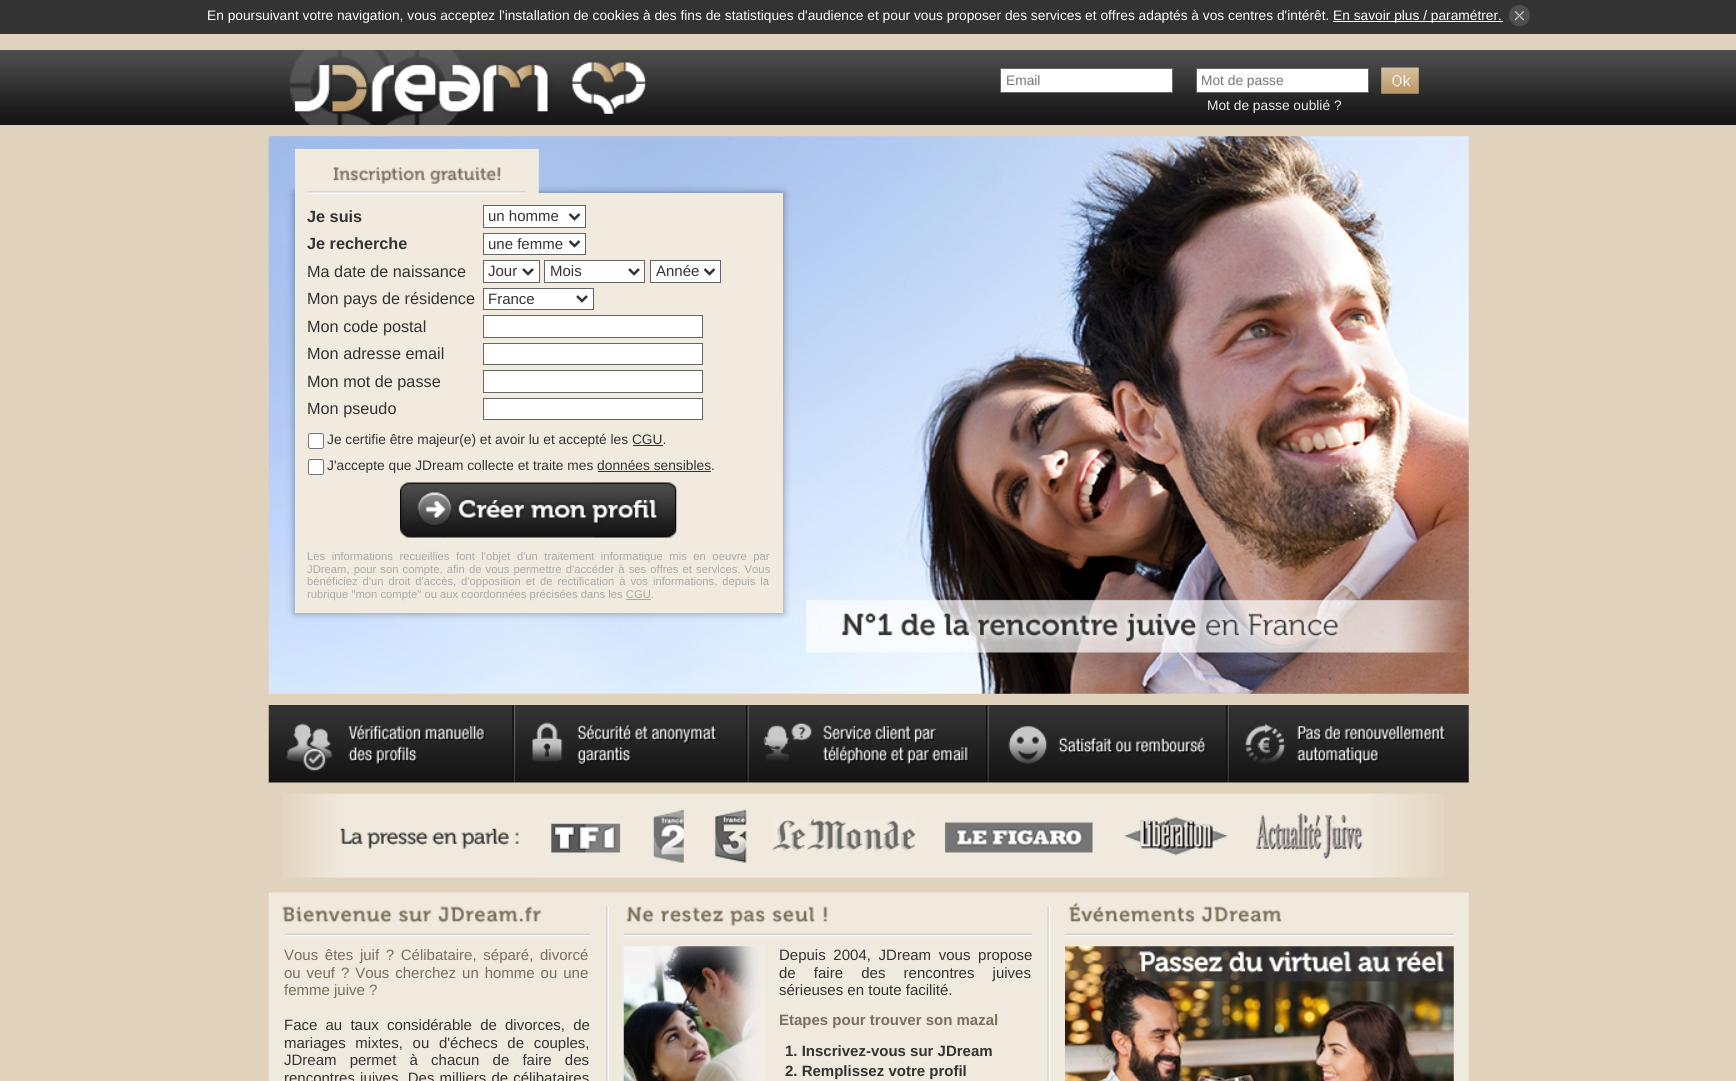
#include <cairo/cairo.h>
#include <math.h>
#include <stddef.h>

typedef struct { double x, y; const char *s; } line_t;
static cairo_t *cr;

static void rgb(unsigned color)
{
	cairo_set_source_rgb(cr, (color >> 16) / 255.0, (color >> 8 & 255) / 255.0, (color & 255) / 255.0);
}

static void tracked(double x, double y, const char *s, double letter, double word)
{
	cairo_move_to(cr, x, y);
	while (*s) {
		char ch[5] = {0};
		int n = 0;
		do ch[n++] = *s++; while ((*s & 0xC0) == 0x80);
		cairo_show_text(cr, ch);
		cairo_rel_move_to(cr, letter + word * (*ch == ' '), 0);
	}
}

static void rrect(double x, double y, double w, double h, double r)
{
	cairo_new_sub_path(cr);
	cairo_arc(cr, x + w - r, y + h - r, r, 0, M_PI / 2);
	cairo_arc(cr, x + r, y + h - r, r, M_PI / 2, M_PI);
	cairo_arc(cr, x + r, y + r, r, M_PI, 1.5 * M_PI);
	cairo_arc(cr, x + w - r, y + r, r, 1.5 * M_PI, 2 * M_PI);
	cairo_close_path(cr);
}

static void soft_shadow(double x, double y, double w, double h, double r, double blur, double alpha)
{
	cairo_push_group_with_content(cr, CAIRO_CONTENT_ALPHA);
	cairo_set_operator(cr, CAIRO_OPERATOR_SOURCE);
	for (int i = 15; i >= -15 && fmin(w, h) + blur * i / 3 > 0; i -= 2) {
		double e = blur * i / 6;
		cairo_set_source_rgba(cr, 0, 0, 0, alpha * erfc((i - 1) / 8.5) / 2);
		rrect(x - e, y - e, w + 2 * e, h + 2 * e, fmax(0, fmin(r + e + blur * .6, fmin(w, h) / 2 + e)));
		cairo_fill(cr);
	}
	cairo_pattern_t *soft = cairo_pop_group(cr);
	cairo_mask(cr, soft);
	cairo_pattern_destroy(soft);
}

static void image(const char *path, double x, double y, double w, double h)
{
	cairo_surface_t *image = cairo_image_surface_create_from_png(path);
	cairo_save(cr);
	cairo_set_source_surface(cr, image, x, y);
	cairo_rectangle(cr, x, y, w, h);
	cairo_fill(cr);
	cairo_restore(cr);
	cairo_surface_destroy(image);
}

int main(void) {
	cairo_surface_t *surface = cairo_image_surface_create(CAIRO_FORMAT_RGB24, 1736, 1081);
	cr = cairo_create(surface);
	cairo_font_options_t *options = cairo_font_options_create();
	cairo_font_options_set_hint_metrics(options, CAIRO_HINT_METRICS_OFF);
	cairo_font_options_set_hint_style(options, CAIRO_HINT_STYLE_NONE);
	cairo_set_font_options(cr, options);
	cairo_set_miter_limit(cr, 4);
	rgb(0xe1d2bd);
	cairo_paint(cr);
	rgb(0x333333);
	cairo_rectangle(cr, 0, 0, 1736, 34);
	cairo_fill(cr);
	rgb(0xffffff);
	cairo_rectangle(cr, 1333, 21, 170, 1);
	cairo_fill(cr);
	image("img/1.png", 1508, 5, 22, 22);
	image("img/2.png", 0, 50, 1736, 75);
	image("img/3.png", 290, 50, 356, 75);
	cairo_rectangle(cr, 1000.5, 68.5, 172, 24);
	cairo_fill_preserve(cr);
	rgb(0x666666);
	cairo_set_line_width(cr, 1);
	cairo_stroke(cr);
	rgb(0xffffff);
	cairo_rectangle(cr, 1196.5, 68.5, 172, 24);
	cairo_fill_preserve(cr);
	rgb(0x666666);
	cairo_stroke(cr);
	image("img/4.png", 1381, 67, 38, 27);
	image("img/5.png", 268, 136, 1201, 558);
	rgb(0x000000);
	soft_shadow(295, 193, 488, 420, 0, 4, 0.39);
	rgb(0xf1ebdf);
	cairo_rectangle(cr, 295, 193, 488, 420);
	cairo_fill(cr);
	image("img/6.png", 295, 148, 244, 46);
	rgb(0xffffff);
	cairo_rectangle(cr, 483.5, 205.5, 102, 22);
	cairo_fill_preserve(cr);
	rgb(0x666666);
	cairo_stroke(cr);
	cairo_new_path(cr);
	cairo_move_to(cr, 569.5, 214);
	cairo_line_to(cr, 574.5, 219);
	cairo_line_to(cr, 579.5, 214);
	rgb(0x333333);
	cairo_set_line_width(cr, 2.5);
	cairo_stroke(cr);
	rgb(0xffffff);
	cairo_rectangle(cr, 483.5, 233.5, 102, 21);
	cairo_fill_preserve(cr);
	rgb(0x666666);
	cairo_set_line_width(cr, 1);
	cairo_stroke(cr);
	cairo_new_path(cr);
	cairo_move_to(cr, 569.5, 241);
	cairo_line_to(cr, 574.5, 246);
	cairo_line_to(cr, 579.5, 241);
	rgb(0x333333);
	cairo_set_line_width(cr, 2.5);
	cairo_stroke(cr);
	rgb(0xffffff);
	cairo_rectangle(cr, 483.5, 260.5, 56, 22);
	cairo_fill_preserve(cr);
	rgb(0x666666);
	cairo_set_line_width(cr, 1);
	cairo_stroke(cr);
	cairo_new_path(cr);
	cairo_move_to(cr, 523, 269);
	cairo_line_to(cr, 528, 274);
	cairo_line_to(cr, 533, 269);
	rgb(0x333333);
	cairo_set_line_width(cr, 2.5);
	cairo_stroke(cr);
	rgb(0xffffff);
	cairo_rectangle(cr, 544.5, 260.5, 100, 22);
	cairo_fill_preserve(cr);
	rgb(0x666666);
	cairo_set_line_width(cr, 1);
	cairo_stroke(cr);
	cairo_new_path(cr);
	cairo_move_to(cr, 629, 269);
	cairo_line_to(cr, 634, 274);
	cairo_line_to(cr, 639, 269);
	rgb(0x333333);
	cairo_set_line_width(cr, 2.5);
	cairo_stroke(cr);
	rgb(0xffffff);
	cairo_rectangle(cr, 650.5, 260.5, 70, 22);
	cairo_fill_preserve(cr);
	rgb(0x666666);
	cairo_set_line_width(cr, 1);
	cairo_stroke(cr);
	cairo_new_path(cr);
	cairo_move_to(cr, 704.5, 269);
	cairo_line_to(cr, 709.5, 274);
	cairo_line_to(cr, 714.5, 269);
	rgb(0x333333);
	cairo_set_line_width(cr, 2.5);
	cairo_stroke(cr);
	rgb(0xffffff);
	cairo_rectangle(cr, 483.5, 288.5, 110, 21);
	cairo_fill_preserve(cr);
	rgb(0x666666);
	cairo_set_line_width(cr, 1);
	cairo_stroke(cr);
	cairo_new_path(cr);
	cairo_move_to(cr, 577, 296);
	cairo_line_to(cr, 582, 301);
	cairo_line_to(cr, 587, 296);
	rgb(0x333333);
	cairo_set_line_width(cr, 2.5);
	cairo_stroke(cr);
	rgb(0xffffff);
	cairo_rectangle(cr, 483.5, 315.5, 219, 22);
	cairo_fill_preserve(cr);
	rgb(0x666666);
	cairo_set_line_width(cr, 1);
	cairo_stroke(cr);
	rgb(0xffffff);
	cairo_rectangle(cr, 483.5, 343.5, 219, 21);
	cairo_fill_preserve(cr);
	rgb(0x666666);
	cairo_stroke(cr);
	rgb(0xffffff);
	cairo_rectangle(cr, 483.5, 370.5, 219, 22);
	cairo_fill_preserve(cr);
	rgb(0x666666);
	cairo_stroke(cr);
	rgb(0xffffff);
	cairo_rectangle(cr, 483.5, 398.5, 219, 21);
	cairo_fill_preserve(cr);
	rgb(0x666666);
	cairo_stroke(cr);
	rgb(0xffffff);
	rrect(308.5, 433.5, 15, 15, 2);
	cairo_fill_preserve(cr);
	rgb(0x767676);
	cairo_stroke(cr);
	rgb(0x333333);
	cairo_rectangle(cr, 633, 445, 30, 1);
	cairo_fill(cr);
	rgb(0xffffff);
	rrect(308.5, 459.5, 15, 15, 2);
	cairo_fill_preserve(cr);
	rgb(0x767676);
	cairo_stroke(cr);
	rgb(0x333333);
	cairo_rectangle(cr, 598, 471, 113, 1);
	cairo_fill(cr);
	image("img/7.png", 400, 482, 277, 56);
	rgb(0xaaaaaa);
	cairo_rectangle(cr, 626, 599, 25, 1);
	cairo_fill(cr);
	image("img/8.png", 268, 705, 1201, 78);
	image("img/9.png", 283, 793, 1161, 85);
	image("img/10.png", 537, 793, 101, 85);
	image("img/11.png", 638, 793, 62, 85);
	image("img/12.png", 700, 793, 61, 85);
	image("img/13.png", 761, 793, 167, 85);
	image("img/14.png", 928, 793, 182, 85);
	image("img/15.png", 1110, 793, 130, 85);
	image("img/16.png", 1240, 793, 133, 85);
	image("img/17.png", 268, 892, 1201, 189);
	image("img/18.png", 623, 946, 143, 135);
	image("img/19.png", 1065, 946, 389, 135);
	cairo_select_font_face(cr, "Liberation Sans", CAIRO_FONT_SLANT_NORMAL, CAIRO_FONT_WEIGHT_NORMAL);
	cairo_set_font_size(cr, 13.75);
	rgb(0xffffff);
	cairo_move_to(cr, 207, 20);
	cairo_show_text(cr, "En poursuivant votre navigation, vous acceptez l'installation de cookies à des fins de statistiques d'audience et pour vous proposer des services et offres adaptés à vos centres d'intérêt.");
	cairo_move_to(cr, 1333, 20);
	cairo_show_text(cr, "En savoir plus / paramétrer.");
	rgb(0x757575);
	cairo_move_to(cr, 1006, 85);
	cairo_show_text(cr, "Email");
	cairo_move_to(cr, 1201, 85);
	cairo_show_text(cr, "Mot de passe");
	rgb(0xeeeeee);
	cairo_move_to(cr, 1207, 110);
	cairo_show_text(cr, "Mot de passe oublié ?");
	cairo_select_font_face(cr, "Liberation Sans", CAIRO_FONT_SLANT_NORMAL, CAIRO_FONT_WEIGHT_BOLD);
	cairo_set_font_size(cr, 16.25);
	rgb(0x333333);
	cairo_move_to(cr, 307, 222);
	cairo_show_text(cr, "Je suis");
	cairo_select_font_face(cr, "Liberation Sans", CAIRO_FONT_SLANT_NORMAL, CAIRO_FONT_WEIGHT_NORMAL);
	cairo_set_font_size(cr, 15);
	cairo_move_to(cr, 488, 221);
	cairo_show_text(cr, "un homme");
	cairo_select_font_face(cr, "Liberation Sans", CAIRO_FONT_SLANT_NORMAL, CAIRO_FONT_WEIGHT_BOLD);
	cairo_set_font_size(cr, 16.25);
	cairo_move_to(cr, 307, 249);
	cairo_show_text(cr, "Je recherche");
	cairo_select_font_face(cr, "Liberation Sans", CAIRO_FONT_SLANT_NORMAL, CAIRO_FONT_WEIGHT_NORMAL);
	cairo_set_font_size(cr, 15);
	cairo_move_to(cr, 488, 249);
	cairo_show_text(cr, "une femme");
	cairo_set_font_size(cr, 16.25);
	cairo_move_to(cr, 307, 277);
	cairo_show_text(cr, "Ma date de naissance");
	cairo_set_font_size(cr, 15);
	{
		static const line_t items[] = {
			{488, 276, "Jour"},
			{550, 276, "Mois"},
			{656, 276, "Année"},
		};
		for (size_t i = 0; i < sizeof items / sizeof *items; i++) {
			cairo_move_to(cr, items[i].x, items[i].y);
			cairo_show_text(cr, items[i].s);
		}
	}
	cairo_set_font_size(cr, 16.25);
	cairo_move_to(cr, 307, 304);
	cairo_show_text(cr, "Mon pays de résidence");
	cairo_set_font_size(cr, 15);
	cairo_move_to(cr, 488, 304);
	cairo_show_text(cr, "France");
	cairo_set_font_size(cr, 16.25);
	{
		static const line_t items[] = {
			{307, 332, "Mon code postal"},
			{307, 359, "Mon adresse email"},
			{307, 387, "Mon mot de passe"},
			{307, 414, "Mon pseudo"},
		};
		for (size_t i = 0; i < sizeof items / sizeof *items; i++) {
			cairo_move_to(cr, items[i].x, items[i].y);
			cairo_show_text(cr, items[i].s);
		}
	}
	cairo_set_font_size(cr, 13.75);
	cairo_move_to(cr, 327, 444);
	cairo_show_text(cr, "Je certifie être majeur(e) et avoir lu et accepté les CGU.");
	cairo_move_to(cr, 327, 470);
	cairo_show_text(cr, "J'accepte que JDream collecte et traite mes données sensibles.");
	cairo_set_font_size(cr, 11.25);
	rgb(0xaaaaaa);
	tracked(307, 560, "Les informations recueillies font l'objet d'un traitement informatique mis en oeuvre par", 0, 3.4);
	tracked(307, 573, "JDream, pour son compte, afin de vous permettre d'accéder à ses offres et services. Vous", 0, 1);
	tracked(307, 585, "bénéficiez d'un droit d'accès, d'opposition et de rectification à vos informations, depuis la", 0, 1.8);
	cairo_move_to(cr, 307, 598);
	cairo_show_text(cr, "rubrique \"mon compte\" ou aux coordonnées précisées dans les CGU.");
	cairo_set_font_size(cr, 15);
	rgb(0x7c6e59);
	tracked(284, 960, "Vous êtes juif ? Célibataire, séparé, divorcé", 0, 2.5);
	tracked(284, 978, "ou veuf ? Vous cherchez un homme ou une", 0, 1.75);
	cairo_move_to(cr, 284, 995);
	cairo_show_text(cr, "femme juive ?");
	rgb(0x333333);
	tracked(284, 1030, "Face au taux considérable de divorces, de", 0, 4);
	tracked(284, 1048, "mariages mixtes, ou d'échecs de couples,", 0, 5.5);
	tracked(284, 1065, "JDream permet à chacun de faire des", 0, 9);
	tracked(284, 1083, "rencontres juives. Des milliers de célibataires", 0, 1);
	tracked(779, 960, "Depuis 2004, JDream vous propose", 0, 3.5);
	tracked(779, 978, "de faire des rencontres juives", 0, 14);
	cairo_move_to(cr, 779, 995);
	cairo_show_text(cr, "sérieuses en toute facilité.");
	cairo_select_font_face(cr, "Liberation Sans", CAIRO_FONT_SLANT_NORMAL, CAIRO_FONT_WEIGHT_BOLD);
	rgb(0x7c6e59);
	cairo_move_to(cr, 779, 1025);
	cairo_show_text(cr, "Etapes pour trouver son mazal");
	rgb(0x333333);
	cairo_move_to(cr, 785, 1056);
	cairo_show_text(cr, "1. Inscrivez-vous sur JDream");
	cairo_move_to(cr, 785, 1076);
	cairo_show_text(cr, "2. Remplissez votre profil");
	cairo_surface_write_to_png(surface, "page.png");
	cairo_font_options_destroy(options);
	cairo_destroy(cr);
	cairo_surface_destroy(surface);
	return 0;
}
